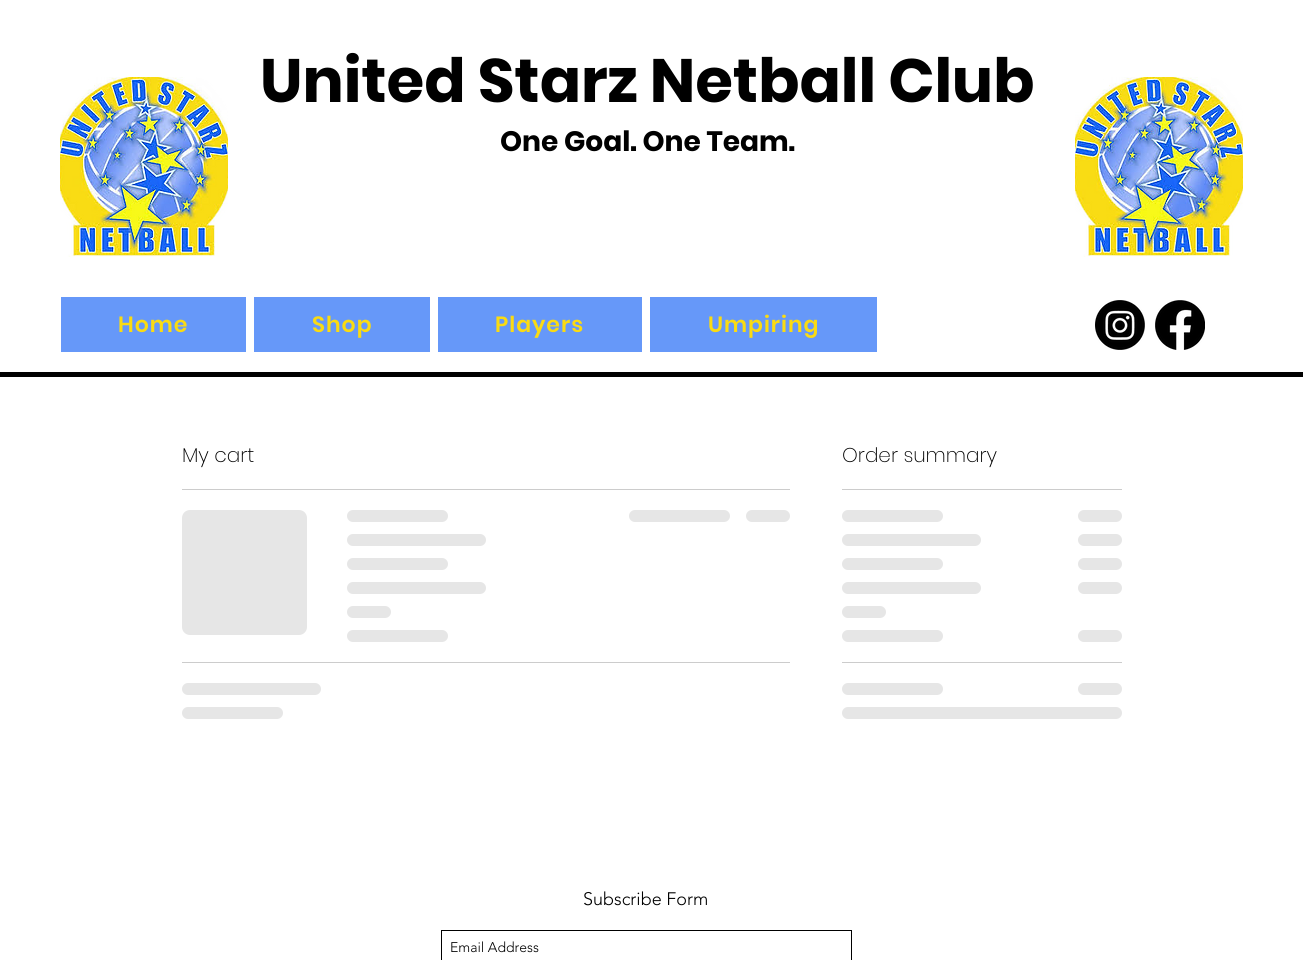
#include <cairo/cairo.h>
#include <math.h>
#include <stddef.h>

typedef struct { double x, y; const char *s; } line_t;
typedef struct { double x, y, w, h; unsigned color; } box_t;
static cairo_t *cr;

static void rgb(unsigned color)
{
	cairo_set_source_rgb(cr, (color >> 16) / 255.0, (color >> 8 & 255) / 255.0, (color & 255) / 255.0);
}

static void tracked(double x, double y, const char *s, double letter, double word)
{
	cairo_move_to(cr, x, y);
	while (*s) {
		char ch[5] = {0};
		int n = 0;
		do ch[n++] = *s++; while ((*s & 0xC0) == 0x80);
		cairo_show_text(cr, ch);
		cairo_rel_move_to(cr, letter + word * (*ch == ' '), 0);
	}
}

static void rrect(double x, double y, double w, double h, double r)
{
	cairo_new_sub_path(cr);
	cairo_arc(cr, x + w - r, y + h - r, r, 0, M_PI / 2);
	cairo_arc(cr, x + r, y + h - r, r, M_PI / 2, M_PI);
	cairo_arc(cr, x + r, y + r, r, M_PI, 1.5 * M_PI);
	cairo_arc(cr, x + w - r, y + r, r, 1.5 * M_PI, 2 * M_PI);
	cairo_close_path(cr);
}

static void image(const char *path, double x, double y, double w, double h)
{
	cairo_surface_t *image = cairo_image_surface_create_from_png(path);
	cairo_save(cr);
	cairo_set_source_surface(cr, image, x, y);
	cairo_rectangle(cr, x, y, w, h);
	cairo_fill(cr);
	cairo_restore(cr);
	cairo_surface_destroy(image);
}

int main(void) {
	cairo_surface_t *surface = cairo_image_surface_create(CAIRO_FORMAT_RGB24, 1303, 960);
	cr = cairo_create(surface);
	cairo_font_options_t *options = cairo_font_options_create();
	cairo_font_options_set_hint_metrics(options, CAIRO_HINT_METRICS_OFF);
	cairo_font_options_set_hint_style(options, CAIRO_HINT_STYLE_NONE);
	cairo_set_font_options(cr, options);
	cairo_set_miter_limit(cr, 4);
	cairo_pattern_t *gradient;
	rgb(0xffffff);
	cairo_paint(cr);
	image("img/1.png", 60, 77, 168, 180);
	image("img/1.png", 1075, 77, 168, 180);
	{
		static const box_t items[] = {
			{61, 297, 185, 55, 0x6698f9},
			{254, 297, 176, 55, 0x6698f9},
			{438, 297, 204, 55, 0x6698f9},
			{650, 297, 227, 55, 0x6698f9},
		};
		for (size_t i = 0; i < sizeof items / sizeof *items; i++) {
			rgb(items[i].color);
			cairo_rectangle(cr, items[i].x, items[i].y, items[i].w, items[i].h);
			cairo_fill(cr);
		}
	}
	image("img/2.png", 1095, 300, 50, 50);
	image("img/3.png", 1155, 300, 50, 50);
	rgb(0x000000);
	cairo_rectangle(cr, 0, 372, 1303, 5);
	cairo_fill(cr);
	rgb(0xcccccc);
	cairo_rectangle(cr, 182, 489, 608, 1);
	cairo_fill(cr);
	gradient = cairo_pattern_create_linear(182, 573, 682, 573);
	cairo_pattern_add_color_stop_rgba(gradient, 0.25, 0.902, 0.902, 0.902, 1);
	cairo_pattern_add_color_stop_rgba(gradient, 0.37, 0.8, 0.8, 0.8, 1);
	cairo_pattern_add_color_stop_rgba(gradient, 0.63, 0.902, 0.902, 0.902, 1);
	cairo_set_source(cr, gradient);
	cairo_pattern_destroy(gradient);
	rrect(182, 510, 125, 125, 8);
	cairo_fill(cr);
	gradient = cairo_pattern_create_linear(347, 516, 751, 516);
	cairo_pattern_add_color_stop_rgba(gradient, 0.25, 0.902, 0.902, 0.902, 1);
	cairo_pattern_add_color_stop_rgba(gradient, 0.37, 0.8, 0.8, 0.8, 1);
	cairo_pattern_add_color_stop_rgba(gradient, 0.63, 0.902, 0.902, 0.902, 1);
	cairo_set_source(cr, gradient);
	cairo_pattern_destroy(gradient);
	rrect(347, 510, 101, 12, 6);
	cairo_fill(cr);
	gradient = cairo_pattern_create_linear(347, 540, 903, 540);
	cairo_pattern_add_color_stop_rgba(gradient, 0.25, 0.902, 0.902, 0.902, 1);
	cairo_pattern_add_color_stop_rgba(gradient, 0.37, 0.8, 0.8, 0.8, 1);
	cairo_pattern_add_color_stop_rgba(gradient, 0.63, 0.902, 0.902, 0.902, 1);
	cairo_set_source(cr, gradient);
	cairo_pattern_destroy(gradient);
	rrect(347, 534, 139, 12, 6);
	cairo_fill(cr);
	gradient = cairo_pattern_create_linear(347, 564, 751, 564);
	cairo_pattern_add_color_stop_rgba(gradient, 0.25, 0.902, 0.902, 0.902, 1);
	cairo_pattern_add_color_stop_rgba(gradient, 0.37, 0.8, 0.8, 0.8, 1);
	cairo_pattern_add_color_stop_rgba(gradient, 0.63, 0.902, 0.902, 0.902, 1);
	cairo_set_source(cr, gradient);
	cairo_pattern_destroy(gradient);
	rrect(347, 558, 101, 12, 6);
	cairo_fill(cr);
	gradient = cairo_pattern_create_linear(347, 588, 903, 588);
	cairo_pattern_add_color_stop_rgba(gradient, 0.25, 0.902, 0.902, 0.902, 1);
	cairo_pattern_add_color_stop_rgba(gradient, 0.37, 0.8, 0.8, 0.8, 1);
	cairo_pattern_add_color_stop_rgba(gradient, 0.63, 0.902, 0.902, 0.902, 1);
	cairo_set_source(cr, gradient);
	cairo_pattern_destroy(gradient);
	rrect(347, 582, 139, 12, 6);
	cairo_fill(cr);
	gradient = cairo_pattern_create_linear(347, 612, 523, 612);
	cairo_pattern_add_color_stop_rgba(gradient, 0.25, 0.902, 0.902, 0.902, 1);
	cairo_pattern_add_color_stop_rgba(gradient, 0.37, 0.8, 0.8, 0.8, 1);
	cairo_pattern_add_color_stop_rgba(gradient, 0.63, 0.902, 0.902, 0.902, 1);
	cairo_set_source(cr, gradient);
	cairo_pattern_destroy(gradient);
	rrect(347, 606, 44, 12, 6);
	cairo_fill(cr);
	gradient = cairo_pattern_create_linear(347, 636, 751, 636);
	cairo_pattern_add_color_stop_rgba(gradient, 0.25, 0.902, 0.902, 0.902, 1);
	cairo_pattern_add_color_stop_rgba(gradient, 0.37, 0.8, 0.8, 0.8, 1);
	cairo_pattern_add_color_stop_rgba(gradient, 0.63, 0.902, 0.902, 0.902, 1);
	cairo_set_source(cr, gradient);
	cairo_pattern_destroy(gradient);
	rrect(347, 630, 101, 12, 6);
	cairo_fill(cr);
	gradient = cairo_pattern_create_linear(629, 516, 1033, 516);
	cairo_pattern_add_color_stop_rgba(gradient, 0.25, 0.902, 0.902, 0.902, 1);
	cairo_pattern_add_color_stop_rgba(gradient, 0.37, 0.8, 0.8, 0.8, 1);
	cairo_pattern_add_color_stop_rgba(gradient, 0.63, 0.902, 0.902, 0.902, 1);
	cairo_set_source(cr, gradient);
	cairo_pattern_destroy(gradient);
	rrect(629, 510, 101, 12, 6);
	cairo_fill(cr);
	gradient = cairo_pattern_create_linear(746, 516, 922, 516);
	cairo_pattern_add_color_stop_rgba(gradient, 0.25, 0.902, 0.902, 0.902, 1);
	cairo_pattern_add_color_stop_rgba(gradient, 0.37, 0.8, 0.8, 0.8, 1);
	cairo_pattern_add_color_stop_rgba(gradient, 0.63, 0.902, 0.902, 0.902, 1);
	cairo_set_source(cr, gradient);
	cairo_pattern_destroy(gradient);
	rrect(746, 510, 44, 12, 6);
	cairo_fill(cr);
	rgb(0xcccccc);
	cairo_rectangle(cr, 182, 662, 608, 1);
	cairo_fill(cr);
	gradient = cairo_pattern_create_linear(182, 689, 738, 689);
	cairo_pattern_add_color_stop_rgba(gradient, 0.25, 0.902, 0.902, 0.902, 1);
	cairo_pattern_add_color_stop_rgba(gradient, 0.37, 0.8, 0.8, 0.8, 1);
	cairo_pattern_add_color_stop_rgba(gradient, 0.63, 0.902, 0.902, 0.902, 1);
	cairo_set_source(cr, gradient);
	cairo_pattern_destroy(gradient);
	rrect(182, 683, 139, 12, 6);
	cairo_fill(cr);
	gradient = cairo_pattern_create_linear(182, 713, 586, 713);
	cairo_pattern_add_color_stop_rgba(gradient, 0.25, 0.902, 0.902, 0.902, 1);
	cairo_pattern_add_color_stop_rgba(gradient, 0.37, 0.8, 0.8, 0.8, 1);
	cairo_pattern_add_color_stop_rgba(gradient, 0.63, 0.902, 0.902, 0.902, 1);
	cairo_set_source(cr, gradient);
	cairo_pattern_destroy(gradient);
	rrect(182, 707, 101, 12, 6);
	cairo_fill(cr);
	rgb(0xcccccc);
	cairo_rectangle(cr, 842, 489, 280, 1);
	cairo_fill(cr);
	gradient = cairo_pattern_create_linear(842, 516, 1246, 516);
	cairo_pattern_add_color_stop_rgba(gradient, 0.25, 0.902, 0.902, 0.902, 1);
	cairo_pattern_add_color_stop_rgba(gradient, 0.37, 0.8, 0.8, 0.8, 1);
	cairo_pattern_add_color_stop_rgba(gradient, 0.63, 0.902, 0.902, 0.902, 1);
	cairo_set_source(cr, gradient);
	cairo_pattern_destroy(gradient);
	rrect(842, 510, 101, 12, 6);
	cairo_fill(cr);
	gradient = cairo_pattern_create_linear(1078, 516, 1254, 516);
	cairo_pattern_add_color_stop_rgba(gradient, 0.25, 0.902, 0.902, 0.902, 1);
	cairo_pattern_add_color_stop_rgba(gradient, 0.37, 0.8, 0.8, 0.8, 1);
	cairo_pattern_add_color_stop_rgba(gradient, 0.63, 0.902, 0.902, 0.902, 1);
	cairo_set_source(cr, gradient);
	cairo_pattern_destroy(gradient);
	rrect(1078, 510, 44, 12, 6);
	cairo_fill(cr);
	gradient = cairo_pattern_create_linear(842, 540, 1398, 540);
	cairo_pattern_add_color_stop_rgba(gradient, 0.25, 0.902, 0.902, 0.902, 1);
	cairo_pattern_add_color_stop_rgba(gradient, 0.37, 0.8, 0.8, 0.8, 1);
	cairo_pattern_add_color_stop_rgba(gradient, 0.63, 0.902, 0.902, 0.902, 1);
	cairo_set_source(cr, gradient);
	cairo_pattern_destroy(gradient);
	rrect(842, 534, 139, 12, 6);
	cairo_fill(cr);
	gradient = cairo_pattern_create_linear(1078, 540, 1254, 540);
	cairo_pattern_add_color_stop_rgba(gradient, 0.25, 0.902, 0.902, 0.902, 1);
	cairo_pattern_add_color_stop_rgba(gradient, 0.37, 0.8, 0.8, 0.8, 1);
	cairo_pattern_add_color_stop_rgba(gradient, 0.63, 0.902, 0.902, 0.902, 1);
	cairo_set_source(cr, gradient);
	cairo_pattern_destroy(gradient);
	rrect(1078, 534, 44, 12, 6);
	cairo_fill(cr);
	gradient = cairo_pattern_create_linear(842, 564, 1246, 564);
	cairo_pattern_add_color_stop_rgba(gradient, 0.25, 0.902, 0.902, 0.902, 1);
	cairo_pattern_add_color_stop_rgba(gradient, 0.37, 0.8, 0.8, 0.8, 1);
	cairo_pattern_add_color_stop_rgba(gradient, 0.63, 0.902, 0.902, 0.902, 1);
	cairo_set_source(cr, gradient);
	cairo_pattern_destroy(gradient);
	rrect(842, 558, 101, 12, 6);
	cairo_fill(cr);
	gradient = cairo_pattern_create_linear(1078, 564, 1254, 564);
	cairo_pattern_add_color_stop_rgba(gradient, 0.25, 0.902, 0.902, 0.902, 1);
	cairo_pattern_add_color_stop_rgba(gradient, 0.37, 0.8, 0.8, 0.8, 1);
	cairo_pattern_add_color_stop_rgba(gradient, 0.63, 0.902, 0.902, 0.902, 1);
	cairo_set_source(cr, gradient);
	cairo_pattern_destroy(gradient);
	rrect(1078, 558, 44, 12, 6);
	cairo_fill(cr);
	gradient = cairo_pattern_create_linear(842, 588, 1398, 588);
	cairo_pattern_add_color_stop_rgba(gradient, 0.25, 0.902, 0.902, 0.902, 1);
	cairo_pattern_add_color_stop_rgba(gradient, 0.37, 0.8, 0.8, 0.8, 1);
	cairo_pattern_add_color_stop_rgba(gradient, 0.63, 0.902, 0.902, 0.902, 1);
	cairo_set_source(cr, gradient);
	cairo_pattern_destroy(gradient);
	rrect(842, 582, 139, 12, 6);
	cairo_fill(cr);
	gradient = cairo_pattern_create_linear(1078, 588, 1254, 588);
	cairo_pattern_add_color_stop_rgba(gradient, 0.25, 0.902, 0.902, 0.902, 1);
	cairo_pattern_add_color_stop_rgba(gradient, 0.37, 0.8, 0.8, 0.8, 1);
	cairo_pattern_add_color_stop_rgba(gradient, 0.63, 0.902, 0.902, 0.902, 1);
	cairo_set_source(cr, gradient);
	cairo_pattern_destroy(gradient);
	rrect(1078, 582, 44, 12, 6);
	cairo_fill(cr);
	gradient = cairo_pattern_create_linear(842, 612, 1018, 612);
	cairo_pattern_add_color_stop_rgba(gradient, 0.25, 0.902, 0.902, 0.902, 1);
	cairo_pattern_add_color_stop_rgba(gradient, 0.37, 0.8, 0.8, 0.8, 1);
	cairo_pattern_add_color_stop_rgba(gradient, 0.63, 0.902, 0.902, 0.902, 1);
	cairo_set_source(cr, gradient);
	cairo_pattern_destroy(gradient);
	rrect(842, 606, 44, 12, 6);
	cairo_fill(cr);
	gradient = cairo_pattern_create_linear(842, 636, 1246, 636);
	cairo_pattern_add_color_stop_rgba(gradient, 0.25, 0.902, 0.902, 0.902, 1);
	cairo_pattern_add_color_stop_rgba(gradient, 0.37, 0.8, 0.8, 0.8, 1);
	cairo_pattern_add_color_stop_rgba(gradient, 0.63, 0.902, 0.902, 0.902, 1);
	cairo_set_source(cr, gradient);
	cairo_pattern_destroy(gradient);
	rrect(842, 630, 101, 12, 6);
	cairo_fill(cr);
	gradient = cairo_pattern_create_linear(1078, 636, 1254, 636);
	cairo_pattern_add_color_stop_rgba(gradient, 0.25, 0.902, 0.902, 0.902, 1);
	cairo_pattern_add_color_stop_rgba(gradient, 0.37, 0.8, 0.8, 0.8, 1);
	cairo_pattern_add_color_stop_rgba(gradient, 0.63, 0.902, 0.902, 0.902, 1);
	cairo_set_source(cr, gradient);
	cairo_pattern_destroy(gradient);
	rrect(1078, 630, 44, 12, 6);
	cairo_fill(cr);
	rgb(0xcccccc);
	cairo_rectangle(cr, 842, 662, 280, 1);
	cairo_fill(cr);
	gradient = cairo_pattern_create_linear(842, 689, 1246, 689);
	cairo_pattern_add_color_stop_rgba(gradient, 0.25, 0.902, 0.902, 0.902, 1);
	cairo_pattern_add_color_stop_rgba(gradient, 0.37, 0.8, 0.8, 0.8, 1);
	cairo_pattern_add_color_stop_rgba(gradient, 0.63, 0.902, 0.902, 0.902, 1);
	cairo_set_source(cr, gradient);
	cairo_pattern_destroy(gradient);
	rrect(842, 683, 101, 12, 6);
	cairo_fill(cr);
	gradient = cairo_pattern_create_linear(1078, 689, 1254, 689);
	cairo_pattern_add_color_stop_rgba(gradient, 0.25, 0.902, 0.902, 0.902, 1);
	cairo_pattern_add_color_stop_rgba(gradient, 0.37, 0.8, 0.8, 0.8, 1);
	cairo_pattern_add_color_stop_rgba(gradient, 0.63, 0.902, 0.902, 0.902, 1);
	cairo_set_source(cr, gradient);
	cairo_pattern_destroy(gradient);
	rrect(1078, 683, 44, 12, 6);
	cairo_fill(cr);
	gradient = cairo_pattern_create_linear(842, 713, 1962, 713);
	cairo_pattern_add_color_stop_rgba(gradient, 0.25, 0.902, 0.902, 0.902, 1);
	cairo_pattern_add_color_stop_rgba(gradient, 0.37, 0.8, 0.8, 0.8, 1);
	cairo_pattern_add_color_stop_rgba(gradient, 0.63, 0.902, 0.902, 0.902, 1);
	cairo_set_source(cr, gradient);
	cairo_pattern_destroy(gradient);
	rrect(842, 707, 280, 12, 6);
	cairo_fill(cr);
	cairo_rectangle(cr, 441.5, 930.5, 410, 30);
	rgb(0x000000);
	cairo_set_line_width(cr, 1);
	cairo_stroke(cr);
	cairo_select_font_face(cr, "Poppins", CAIRO_FONT_SLANT_NORMAL, CAIRO_FONT_WEIGHT_BOLD);
	cairo_set_font_size(cr, 61);
	cairo_move_to(cr, 260, 102);
	cairo_show_text(cr, "United Starz Netball Club");
	cairo_set_font_size(cr, 28);
	cairo_move_to(cr, 500, 151);
	cairo_show_text(cr, "One Goal. One Team.");
	cairo_select_font_face(cr, "Poppins SemiBold", CAIRO_FONT_SLANT_NORMAL, CAIRO_FONT_WEIGHT_NORMAL);
	cairo_set_font_size(cr, 22);
	rgb(0xfadb12);
	{
		static const line_t items[] = {
			{118, 332, "Home"},
			{312, 332, "Shop"},
			{495, 332, "Players"},
			{708, 332, "Umpiring"},
		};
		for (size_t i = 0; i < sizeof items / sizeof *items; i++) {
			tracked(items[i].x, items[i].y, items[i].s, 1, 0);
		}
	}
	cairo_select_font_face(cr, "Poppins ExtraLight", CAIRO_FONT_SLANT_NORMAL, CAIRO_FONT_WEIGHT_NORMAL);
	cairo_set_font_size(cr, 20);
	rgb(0x000000);
	cairo_move_to(cr, 182, 462);
	cairo_show_text(cr, "My cart");
	cairo_move_to(cr, 842, 462);
	cairo_show_text(cr, "Order summary");
	cairo_select_font_face(cr, "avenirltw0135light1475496 Light", CAIRO_FONT_SLANT_NORMAL, CAIRO_FONT_WEIGHT_NORMAL);
	cairo_set_font_size(cr, 18);
	cairo_move_to(cr, 583, 905);
	cairo_show_text(cr, "Subscribe Form");
	cairo_set_font_size(cr, 14);
	cairo_move_to(cr, 450, 952);
	cairo_show_text(cr, "Email Address");
	cairo_surface_write_to_png(surface, "page.png");
	cairo_font_options_destroy(options);
	cairo_destroy(cr);
	cairo_surface_destroy(surface);
	return 0;
}
